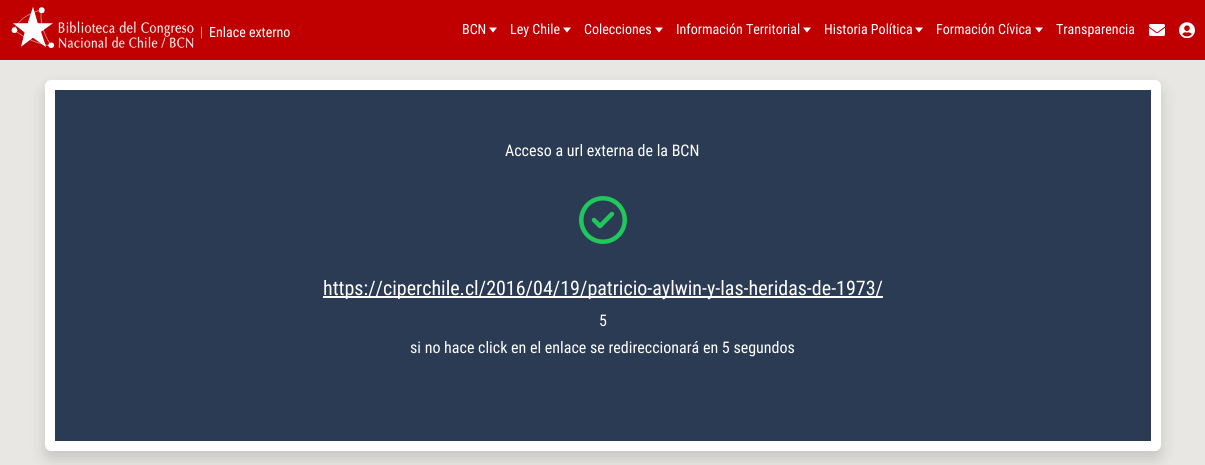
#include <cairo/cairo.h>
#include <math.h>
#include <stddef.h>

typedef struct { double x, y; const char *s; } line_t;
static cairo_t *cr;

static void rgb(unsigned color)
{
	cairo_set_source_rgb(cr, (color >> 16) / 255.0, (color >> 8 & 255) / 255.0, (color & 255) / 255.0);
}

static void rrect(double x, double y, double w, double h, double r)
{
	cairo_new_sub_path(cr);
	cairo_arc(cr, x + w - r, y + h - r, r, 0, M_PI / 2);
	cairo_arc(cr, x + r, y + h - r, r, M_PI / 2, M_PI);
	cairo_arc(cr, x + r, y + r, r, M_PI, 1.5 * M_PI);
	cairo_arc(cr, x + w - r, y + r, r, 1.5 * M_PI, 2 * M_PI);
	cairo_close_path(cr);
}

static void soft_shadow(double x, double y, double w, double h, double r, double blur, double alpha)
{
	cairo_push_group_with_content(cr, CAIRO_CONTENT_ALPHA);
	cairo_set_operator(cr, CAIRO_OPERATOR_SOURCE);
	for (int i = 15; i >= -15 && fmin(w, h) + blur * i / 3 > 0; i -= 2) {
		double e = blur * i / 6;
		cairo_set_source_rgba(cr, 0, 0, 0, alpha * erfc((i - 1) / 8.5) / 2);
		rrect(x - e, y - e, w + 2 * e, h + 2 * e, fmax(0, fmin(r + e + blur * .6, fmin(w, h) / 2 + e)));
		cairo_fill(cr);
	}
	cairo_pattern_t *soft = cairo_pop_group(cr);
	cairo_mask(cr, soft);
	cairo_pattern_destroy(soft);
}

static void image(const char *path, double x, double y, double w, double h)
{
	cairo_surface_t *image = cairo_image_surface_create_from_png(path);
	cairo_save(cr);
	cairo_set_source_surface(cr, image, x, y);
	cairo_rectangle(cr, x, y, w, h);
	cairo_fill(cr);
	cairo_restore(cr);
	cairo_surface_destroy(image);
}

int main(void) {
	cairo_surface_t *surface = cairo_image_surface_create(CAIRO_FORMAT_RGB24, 1205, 465);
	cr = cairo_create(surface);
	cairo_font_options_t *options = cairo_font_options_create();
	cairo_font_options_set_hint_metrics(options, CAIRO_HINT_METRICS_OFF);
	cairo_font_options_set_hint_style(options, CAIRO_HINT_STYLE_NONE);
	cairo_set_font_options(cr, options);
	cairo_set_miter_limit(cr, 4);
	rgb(0xe8e7e3);
	cairo_paint(cr);
	rgb(0xc00000);
	cairo_rectangle(cr, 0, 0, 1205, 60);
	cairo_fill(cr);
	image("img/1.png", 11, 7, 183, 41);
	rgb(0xffffff);
	cairo_new_path(cr);
	cairo_move_to(cr, 489, 27.5);
	cairo_line_to(cr, 497, 27.5);
	cairo_line_to(cr, 493, 32.5);
	cairo_close_path(cr);
	cairo_fill(cr);
	cairo_new_path(cr);
	cairo_move_to(cr, 563, 27.5);
	cairo_line_to(cr, 571, 27.5);
	cairo_line_to(cr, 567, 32.5);
	cairo_close_path(cr);
	cairo_fill(cr);
	cairo_new_path(cr);
	cairo_move_to(cr, 655, 27.5);
	cairo_line_to(cr, 663, 27.5);
	cairo_line_to(cr, 659, 32.5);
	cairo_close_path(cr);
	cairo_fill(cr);
	cairo_new_path(cr);
	cairo_move_to(cr, 803, 27.5);
	cairo_line_to(cr, 811, 27.5);
	cairo_line_to(cr, 807, 32.5);
	cairo_close_path(cr);
	cairo_fill(cr);
	cairo_new_path(cr);
	cairo_move_to(cr, 915, 27.5);
	cairo_line_to(cr, 923, 27.5);
	cairo_line_to(cr, 919, 32.5);
	cairo_close_path(cr);
	cairo_fill(cr);
	cairo_new_path(cr);
	cairo_move_to(cr, 1035, 27.5);
	cairo_line_to(cr, 1043, 27.5);
	cairo_line_to(cr, 1039, 32.5);
	cairo_close_path(cr);
	cairo_fill(cr);
	image("img/2.png", 1149, 24, 16, 12);
	image("img/3.png", 1179, 22, 16, 16);
	rgb(0x000000);
	soft_shadow(45, 88, 1116, 371, 6, 8, 0.15);
	rgb(0x2a3b53);
	rrect(50, 85, 1106, 361, 1);
	cairo_fill_preserve(cr);
	rgb(0xffffff);
	cairo_set_line_width(cr, 10);
	cairo_stroke(cr);
	image("img/4.png", 579, 196, 48, 48);
	cairo_rectangle(cr, 323, 296, 560, 2);
	cairo_fill(cr);
	cairo_select_font_face(cr, "WenQuanYi Zen Hei Medium", CAIRO_FONT_SLANT_NORMAL, CAIRO_FONT_WEIGHT_NORMAL);
	cairo_set_font_size(cr, 14);
	cairo_move_to(cr, 195, 37);
	cairo_show_text(cr, "︱");
	cairo_select_font_face(cr, "Roboto Condensed", CAIRO_FONT_SLANT_NORMAL, CAIRO_FONT_WEIGHT_NORMAL);
	{
		static const line_t items[] = {
			{209, 37, "Enlace externo"},
			{462, 34, "BCN"},
			{510, 34, "Ley Chile"},
			{584, 34, "Colecciones"},
			{676, 34, "Información Territorial"},
			{824, 34, "Historia Política"},
			{936, 34, "Formación Cívica"},
			{1056, 34, "Transparencia"},
		};
		for (size_t i = 0; i < sizeof items / sizeof *items; i++) {
			cairo_move_to(cr, items[i].x, items[i].y);
			cairo_show_text(cr, items[i].s);
		}
	}
	cairo_set_font_size(cr, 16);
	cairo_move_to(cr, 505, 156);
	cairo_show_text(cr, "Acceso a url externa de la BCN");
	cairo_set_font_size(cr, 20);
	cairo_move_to(cr, 323, 295);
	cairo_show_text(cr, "https://ciperchile.cl/2016/04/19/patricio-aylwin-y-las-heridas-de-1973/");
	cairo_set_font_size(cr, 16);
	cairo_move_to(cr, 599, 326);
	cairo_show_text(cr, "5");
	cairo_move_to(cr, 410, 353);
	cairo_show_text(cr, "si no hace click en el enlace se redireccionará en 5 segundos");
	cairo_surface_write_to_png(surface, "page.png");
	cairo_font_options_destroy(options);
	cairo_destroy(cr);
	cairo_surface_destroy(surface);
	return 0;
}
